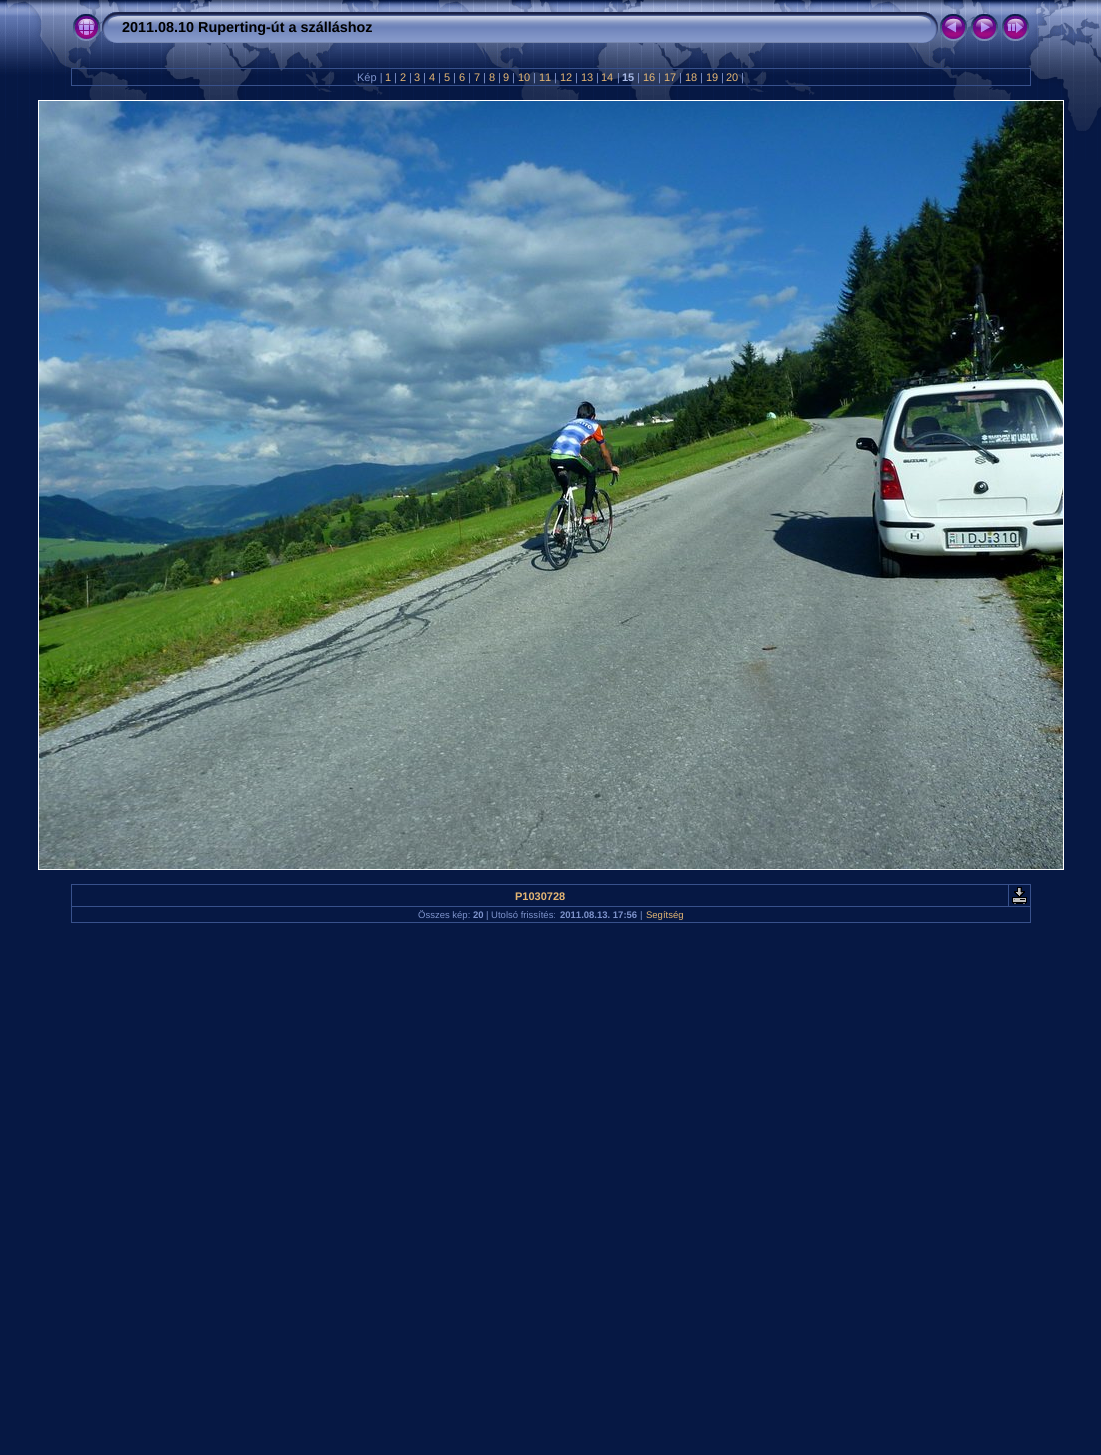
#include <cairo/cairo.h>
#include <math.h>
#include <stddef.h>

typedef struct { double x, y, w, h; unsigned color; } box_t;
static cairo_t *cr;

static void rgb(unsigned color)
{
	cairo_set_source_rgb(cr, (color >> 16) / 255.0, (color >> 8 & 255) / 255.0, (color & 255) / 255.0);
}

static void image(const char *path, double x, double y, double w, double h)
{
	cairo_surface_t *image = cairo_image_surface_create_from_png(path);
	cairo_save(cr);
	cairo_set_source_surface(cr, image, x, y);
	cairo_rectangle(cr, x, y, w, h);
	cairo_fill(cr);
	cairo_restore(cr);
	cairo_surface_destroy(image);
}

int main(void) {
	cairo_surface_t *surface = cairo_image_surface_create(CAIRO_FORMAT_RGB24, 1101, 1455);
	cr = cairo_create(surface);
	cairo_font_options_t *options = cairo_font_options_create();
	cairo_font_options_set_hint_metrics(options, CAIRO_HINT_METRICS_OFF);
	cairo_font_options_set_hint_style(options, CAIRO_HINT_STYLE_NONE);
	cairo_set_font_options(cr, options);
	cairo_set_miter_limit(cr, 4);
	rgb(0x061844);
	cairo_paint(cr);
	image("img/1.png", 0, 0, 1101, 168);
	image("img/2.png", 73, 14, 27, 27);
	image("img/3.png", 102, 12, 20, 31);
	image("img/4.png", 122, 12, 796, 31);
	image("img/5.png", 918, 12, 20, 31);
	image("img/6.png", 940, 14, 27, 27);
	image("img/7.png", 971, 14, 27, 27);
	image("img/8.png", 1002, 14, 27, 27);
	{
		static const box_t items[] = {
			{71, 68, 960, 1, 0x38518c},
			{1030, 68, 1, 18, 0x38518c},
			{71, 85, 960, 1, 0x38518c},
			{71, 68, 1, 18, 0x38518c},
		};
		for (size_t i = 0; i < sizeof items / sizeof *items; i++) {
			rgb(items[i].color);
			cairo_rectangle(cr, items[i].x, items[i].y, items[i].w, items[i].h);
			cairo_fill(cr);
		}
	}
	cairo_rectangle(cr, 38.5, 100.5, 1025, 769);
	rgb(0xffffff);
	cairo_set_line_width(cr, 1);
	cairo_stroke(cr);
	image("img/9.png", 39, 101, 1024, 768);
	{
		static const box_t items[] = {
			{1008, 884, 23, 1, 0x38518c},
			{71, 906, 960, 1, 0x38518c},
			{1008, 884, 1, 23, 0x38518c},
			{71, 884, 938, 1, 0x38518c},
			{1030, 906, 1, 17, 0x38518c},
			{71, 922, 960, 1, 0x38518c},
			{71, 906, 1, 17, 0x38518c},
			{71, 884, 1, 23, 0x38518c},
			{1030, 884, 1, 23, 0x38518c},
		};
		for (size_t i = 0; i < sizeof items / sizeof *items; i++) {
			rgb(items[i].color);
			cairo_rectangle(cr, items[i].x, items[i].y, items[i].w, items[i].h);
			cairo_fill(cr);
		}
	}
	image("img/10.png", 1012, 887, 15, 17);
	cairo_select_font_face(cr, "Liberation Sans", CAIRO_FONT_SLANT_NORMAL, CAIRO_FONT_WEIGHT_BOLD);
	cairo_set_font_size(cr, 14.4);
	rgb(0x000000);
	cairo_move_to(cr, 122, 32);
	cairo_show_text(cr, "2011.08.10 Ruperting-út a szálláshoz");
	cairo_select_font_face(cr, "Liberation Sans", CAIRO_FONT_SLANT_NORMAL, CAIRO_FONT_WEIGHT_NORMAL);
	cairo_set_font_size(cr, 11);
	rgb(0x7e93cc);
	cairo_move_to(cr, 357, 81);
	cairo_show_text(cr, "Kép |");
	rgb(0xe5b673);
	cairo_move_to(cr, 385, 81);
	cairo_show_text(cr, "1");
	rgb(0x7e93cc);
	cairo_move_to(cr, 394, 81);
	cairo_show_text(cr, "|");
	rgb(0xe5b673);
	cairo_move_to(cr, 400, 81);
	cairo_show_text(cr, "2");
	rgb(0x7e93cc);
	cairo_move_to(cr, 409, 81);
	cairo_show_text(cr, "|");
	rgb(0xe5b673);
	cairo_move_to(cr, 414, 81);
	cairo_show_text(cr, "3");
	rgb(0x7e93cc);
	cairo_move_to(cr, 423, 81);
	cairo_show_text(cr, "|");
	rgb(0xe5b673);
	cairo_move_to(cr, 429, 81);
	cairo_show_text(cr, "4");
	rgb(0x7e93cc);
	cairo_move_to(cr, 438, 81);
	cairo_show_text(cr, "|");
	rgb(0xe5b673);
	cairo_move_to(cr, 444, 81);
	cairo_show_text(cr, "5");
	rgb(0x7e93cc);
	cairo_move_to(cr, 453, 81);
	cairo_show_text(cr, "|");
	rgb(0xe5b673);
	cairo_move_to(cr, 459, 81);
	cairo_show_text(cr, "6");
	rgb(0x7e93cc);
	cairo_move_to(cr, 468, 81);
	cairo_show_text(cr, "|");
	rgb(0xe5b673);
	cairo_move_to(cr, 474, 81);
	cairo_show_text(cr, "7");
	rgb(0x7e93cc);
	cairo_move_to(cr, 483, 81);
	cairo_show_text(cr, "|");
	rgb(0xe5b673);
	cairo_move_to(cr, 489, 81);
	cairo_show_text(cr, "8");
	rgb(0x7e93cc);
	cairo_move_to(cr, 498, 81);
	cairo_show_text(cr, "|");
	rgb(0xe5b673);
	cairo_move_to(cr, 503, 81);
	cairo_show_text(cr, "9");
	rgb(0x7e93cc);
	cairo_move_to(cr, 512, 81);
	cairo_show_text(cr, "|");
	rgb(0xe5b673);
	cairo_move_to(cr, 518, 81);
	cairo_show_text(cr, "10");
	rgb(0x7e93cc);
	cairo_move_to(cr, 533, 81);
	cairo_show_text(cr, "|");
	rgb(0xe5b673);
	cairo_move_to(cr, 539, 81);
	cairo_show_text(cr, "11");
	rgb(0x7e93cc);
	cairo_move_to(cr, 554, 81);
	cairo_show_text(cr, "|");
	rgb(0xe5b673);
	cairo_move_to(cr, 560, 81);
	cairo_show_text(cr, "12");
	rgb(0x7e93cc);
	cairo_move_to(cr, 575, 81);
	cairo_show_text(cr, "|");
	rgb(0xe5b673);
	cairo_move_to(cr, 581, 81);
	cairo_show_text(cr, "13");
	rgb(0x7e93cc);
	cairo_move_to(cr, 596, 81);
	cairo_show_text(cr, "|");
	rgb(0xe5b673);
	cairo_move_to(cr, 601, 81);
	cairo_show_text(cr, "14");
	rgb(0x7e93cc);
	cairo_move_to(cr, 617, 81);
	cairo_show_text(cr, "|");
	cairo_select_font_face(cr, "Liberation Sans", CAIRO_FONT_SLANT_NORMAL, CAIRO_FONT_WEIGHT_BOLD);
	rgb(0xa9bae7);
	cairo_move_to(cr, 622, 81);
	cairo_show_text(cr, "15");
	cairo_select_font_face(cr, "Liberation Sans", CAIRO_FONT_SLANT_NORMAL, CAIRO_FONT_WEIGHT_NORMAL);
	rgb(0x7e93cc);
	cairo_move_to(cr, 637, 81);
	cairo_show_text(cr, "|");
	rgb(0xe5b673);
	cairo_move_to(cr, 643, 81);
	cairo_show_text(cr, "16");
	rgb(0x7e93cc);
	cairo_move_to(cr, 658, 81);
	cairo_show_text(cr, "|");
	rgb(0xe5b673);
	cairo_move_to(cr, 664, 81);
	cairo_show_text(cr, "17");
	rgb(0x7e93cc);
	cairo_move_to(cr, 679, 81);
	cairo_show_text(cr, "|");
	rgb(0xe5b673);
	cairo_move_to(cr, 685, 81);
	cairo_show_text(cr, "18");
	rgb(0x7e93cc);
	cairo_move_to(cr, 700, 81);
	cairo_show_text(cr, "|");
	rgb(0xe5b673);
	cairo_move_to(cr, 706, 81);
	cairo_show_text(cr, "19");
	rgb(0x7e93cc);
	cairo_move_to(cr, 721, 81);
	cairo_show_text(cr, "|");
	rgb(0xe5b673);
	cairo_move_to(cr, 726, 81);
	cairo_show_text(cr, "20");
	rgb(0x7e93cc);
	cairo_move_to(cr, 741, 81);
	cairo_show_text(cr, "|");
	cairo_select_font_face(cr, "Liberation Sans", CAIRO_FONT_SLANT_NORMAL, CAIRO_FONT_WEIGHT_BOLD);
	rgb(0xe5b673);
	cairo_move_to(cr, 515, 900);
	cairo_show_text(cr, "P1030728");
	cairo_select_font_face(cr, "Liberation Sans", CAIRO_FONT_SLANT_NORMAL, CAIRO_FONT_WEIGHT_NORMAL);
	cairo_set_font_size(cr, 9.5);
	rgb(0x7e93cc);
	cairo_move_to(cr, 418, 918);
	cairo_show_text(cr, "Összes kép:");
	cairo_select_font_face(cr, "Liberation Sans", CAIRO_FONT_SLANT_NORMAL, CAIRO_FONT_WEIGHT_BOLD);
	cairo_move_to(cr, 473, 918);
	cairo_show_text(cr, "20");
	cairo_select_font_face(cr, "Liberation Sans", CAIRO_FONT_SLANT_NORMAL, CAIRO_FONT_WEIGHT_NORMAL);
	cairo_move_to(cr, 486, 918);
	cairo_show_text(cr, "| Utolsó frissítés:");
	cairo_select_font_face(cr, "Liberation Sans", CAIRO_FONT_SLANT_NORMAL, CAIRO_FONT_WEIGHT_BOLD);
	cairo_move_to(cr, 560, 918);
	cairo_show_text(cr, "2011.08.13. 17:56");
	cairo_select_font_face(cr, "Liberation Sans", CAIRO_FONT_SLANT_NORMAL, CAIRO_FONT_WEIGHT_NORMAL);
	cairo_move_to(cr, 640, 918);
	cairo_show_text(cr, "|");
	rgb(0xe5b673);
	cairo_move_to(cr, 646, 918);
	cairo_show_text(cr, "Segítség");
	cairo_surface_write_to_png(surface, "page.png");
	cairo_font_options_destroy(options);
	cairo_destroy(cr);
	cairo_surface_destroy(surface);
	return 0;
}
